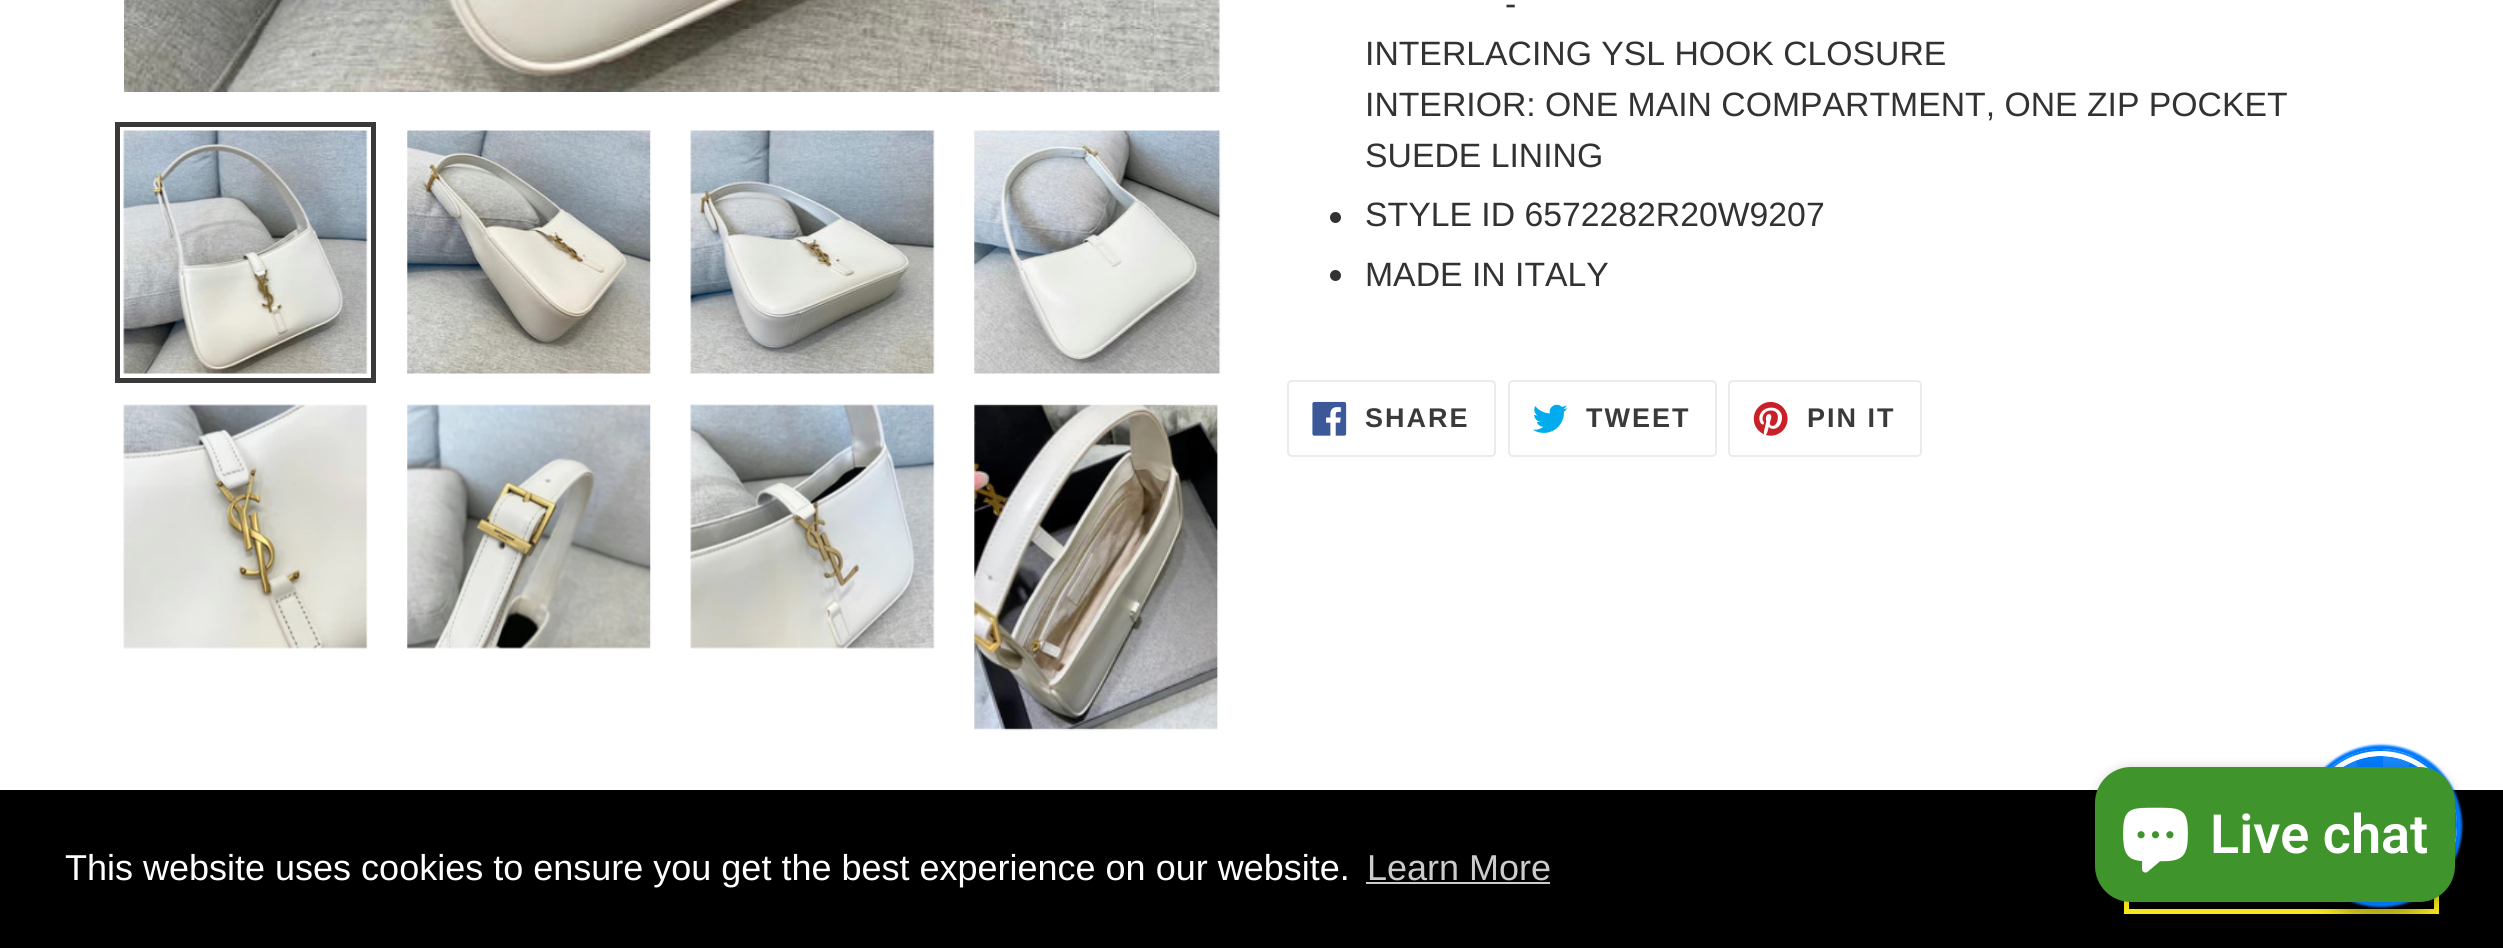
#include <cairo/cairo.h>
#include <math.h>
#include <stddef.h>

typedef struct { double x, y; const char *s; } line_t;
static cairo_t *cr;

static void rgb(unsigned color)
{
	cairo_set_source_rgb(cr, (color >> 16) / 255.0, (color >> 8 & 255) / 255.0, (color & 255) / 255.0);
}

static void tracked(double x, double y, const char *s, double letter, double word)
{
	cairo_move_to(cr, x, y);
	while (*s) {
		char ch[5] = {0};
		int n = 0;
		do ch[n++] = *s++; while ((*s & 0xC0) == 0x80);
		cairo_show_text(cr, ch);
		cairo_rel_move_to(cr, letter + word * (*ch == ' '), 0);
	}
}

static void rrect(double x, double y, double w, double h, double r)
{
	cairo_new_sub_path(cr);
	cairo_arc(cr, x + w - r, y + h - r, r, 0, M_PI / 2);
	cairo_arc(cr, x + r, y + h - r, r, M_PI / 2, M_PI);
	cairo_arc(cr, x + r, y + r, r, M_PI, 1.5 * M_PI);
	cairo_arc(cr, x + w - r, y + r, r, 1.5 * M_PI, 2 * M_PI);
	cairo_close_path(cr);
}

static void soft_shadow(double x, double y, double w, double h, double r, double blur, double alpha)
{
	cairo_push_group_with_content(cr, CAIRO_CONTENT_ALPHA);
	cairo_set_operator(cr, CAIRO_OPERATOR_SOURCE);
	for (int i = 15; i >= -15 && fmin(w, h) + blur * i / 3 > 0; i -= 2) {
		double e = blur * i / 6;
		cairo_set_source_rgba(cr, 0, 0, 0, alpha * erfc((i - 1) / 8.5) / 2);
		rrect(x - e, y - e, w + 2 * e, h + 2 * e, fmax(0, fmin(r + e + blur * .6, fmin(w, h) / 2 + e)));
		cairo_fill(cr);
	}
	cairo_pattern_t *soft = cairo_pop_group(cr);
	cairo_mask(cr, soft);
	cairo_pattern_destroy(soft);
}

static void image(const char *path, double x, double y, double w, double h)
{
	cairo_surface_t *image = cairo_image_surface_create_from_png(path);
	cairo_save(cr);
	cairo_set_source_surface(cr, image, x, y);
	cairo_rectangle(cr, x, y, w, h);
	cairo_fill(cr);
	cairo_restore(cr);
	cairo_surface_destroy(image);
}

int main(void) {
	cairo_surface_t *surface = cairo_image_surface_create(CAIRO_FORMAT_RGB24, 2503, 948);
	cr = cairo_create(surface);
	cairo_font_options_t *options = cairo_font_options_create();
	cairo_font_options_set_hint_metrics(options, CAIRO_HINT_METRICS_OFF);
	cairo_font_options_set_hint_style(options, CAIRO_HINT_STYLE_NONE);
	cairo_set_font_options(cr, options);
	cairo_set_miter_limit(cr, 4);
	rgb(0xffffff);
	cairo_paint(cr);
	image("img/1.png", 124, 0, 1096, 92);
	cairo_rectangle(cr, 117.5, 124.5, 256, 256);
	rgb(0x3a3a3a);
	cairo_set_line_width(cr, 5);
	cairo_stroke(cr);
	image("img/2.png", 123, 130, 245, 244);
	image("img/3.png", 407, 130, 244, 244);
	image("img/4.png", 690, 130, 245, 244);
	image("img/5.png", 974, 130, 247, 244);
	image("img/6.png", 123, 404, 245, 245);
	image("img/7.png", 407, 404, 244, 245);
	image("img/8.png", 690, 404, 245, 245);
	image("img/9.png", 974, 404, 245, 327);
	rgb(0x333232);
	cairo_arc(cr, 1335.5, 217.5, 5.5, 0, 2 * M_PI);
	cairo_fill(cr);
	cairo_arc(cr, 1335.5, 275.5, 5.5, 0, 2 * M_PI);
	cairo_fill(cr);
	rrect(1288, 381, 207, 75, 4);
	rgb(0xebebeb);
	cairo_set_line_width(cr, 2);
	cairo_stroke(cr);
	image("img/10.png", 1312, 401, 35, 35);
	rrect(1509, 381, 207, 75, 4);
	cairo_stroke(cr);
	image("img/11.png", 1533, 404, 35, 29);
	rrect(1729, 381, 192, 75, 4);
	cairo_stroke(cr);
	image("img/12.png", 1753, 401, 35, 35);
	rgb(0x000000);
	cairo_rectangle(cr, 0, 790, 2503, 158);
	cairo_fill(cr);
	cairo_rectangle(cr, 2126.5, 828.5, 310, 83);
	rgb(0xf8e71c);
	cairo_set_line_width(cr, 5);
	cairo_stroke(cr);
	rgb(0x000000);
	soft_shadow(2302, 763, 157, 157, 78.5, 9, 0.3);
	rgb(0x007bff);
	soft_shadow(2300, 745, 162, 162, 81, 1, 1);
	rgb(0x007bff);
	rrect(2302, 747, 157, 158, 78.5);
	cairo_fill(cr);
	cairo_arc(cr, 2380.5, 825.5, 73, 0, 2 * M_PI);
	rgb(0xffffff);
	cairo_set_line_width(cr, 7);
	cairo_stroke(cr);
	cairo_arc(cr, 2380.5, 825.5, 73, 0, 2 * M_PI);
	cairo_stroke(cr);
	cairo_arc(cr, 2380.5, 825.5, 75.5, 0, 2 * M_PI);
	rgb(0x007bff);
	cairo_set_line_width(cr, 2);
	cairo_stroke(cr);
	rrect(2303, 748, 155, 156, 77.5);
	cairo_stroke(cr);
	cairo_set_source_rgba(cr, 1, 1, 1, 0.1);
	cairo_new_path(cr);
	cairo_move_to(cr, 2353, 754);
	cairo_curve_to(cr, 2343, 758, 2334, 764, 2326, 771);
	cairo_line_to(cr, 2383, 828);
	cairo_line_to(cr, 2309, 797);
	cairo_curve_to(cr, 2306, 807, 2304, 817, 2304, 828);
	cairo_line_to(cr, 2383, 828);
	cairo_line_to(cr, 2311, 857);
	cairo_curve_to(cr, 2315, 867, 2321, 875, 2329, 882);
	cairo_line_to(cr, 2383, 828);
	cairo_line_to(cr, 2354, 897);
	cairo_curve_to(cr, 2363, 901, 2373, 902, 2383, 902);
	cairo_line_to(cr, 2383, 828);
	cairo_line_to(cr, 2411, 896);
	cairo_curve_to(cr, 2420, 892, 2428, 886, 2435, 880);
	cairo_line_to(cr, 2383, 828);
	cairo_line_to(cr, 2450, 856);
	cairo_curve_to(cr, 2454, 848, 2457, 838, 2457, 828);
	cairo_line_to(cr, 2383, 828);
	cairo_line_to(cr, 2452, 800);
	cairo_curve_to(cr, 2449, 790, 2444, 781, 2437, 774);
	cairo_line_to(cr, 2383, 828);
	cairo_line_to(cr, 2413, 756);
	cairo_curve_to(cr, 2404, 752, 2394, 749, 2383, 749);
	cairo_line_to(cr, 2383, 828);
	cairo_close_path(cr);
	cairo_fill(cr);
	rgb(0x000000);
	soft_shadow(2095, 767, 360, 135, 36, 5.5, 0.15);
	rgb(0x3f942b);
	rrect(2095, 767, 360, 135, 36);
	cairo_fill(cr);
	image("img/13.png", 2123, 807, 65, 66);
	rgb(0xcccccc);
	cairo_rectangle(cr, 1366, 882, 184, 2);
	cairo_fill(cr);
	cairo_select_font_face(cr, "Liberation Sans", CAIRO_FONT_SLANT_NORMAL, CAIRO_FONT_WEIGHT_NORMAL);
	cairo_set_font_size(cr, 33.75);
	rgb(0x333232);
	{
		static const line_t items[] = {
			{1505, 15, "-"},
			{1365, 65, "INTERLACING YSL HOOK CLOSURE"},
			{1365, 116, "INTERIOR: ONE MAIN COMPARTMENT, ONE ZIP POCKET"},
			{1365, 167, "SUEDE LINING"},
			{1365, 226, "STYLE ID 6572282R20W9207"},
			{1365, 286, "MADE IN ITALY"},
		};
		for (size_t i = 0; i < sizeof items / sizeof *items; i++) {
			cairo_move_to(cr, items[i].x, items[i].y);
			cairo_show_text(cr, items[i].s);
		}
	}
	cairo_select_font_face(cr, "Liberation Sans", CAIRO_FONT_SLANT_NORMAL, CAIRO_FONT_WEIGHT_BOLD);
	cairo_set_font_size(cr, 27);
	rgb(0x3a3a3a);
	{
		static const line_t items[] = {
			{1365, 427, "SHARE"},
			{1586, 427, "TWEET"},
			{1807, 427, "PIN IT"},
		};
		for (size_t i = 0; i < sizeof items / sizeof *items; i++) {
			tracked(items[i].x, items[i].y, items[i].s, 2, 0);
		}
	}
	cairo_select_font_face(cr, "Roboto SemiBold", CAIRO_FONT_SLANT_NORMAL, CAIRO_FONT_WEIGHT_NORMAL);
	cairo_set_font_size(cr, 54);
	rgb(0xffffff);
	cairo_move_to(cr, 2210, 853);
	cairo_show_text(cr, "Live chat");
	cairo_select_font_face(cr, "Liberation Sans", CAIRO_FONT_SLANT_NORMAL, CAIRO_FONT_WEIGHT_NORMAL);
	cairo_set_font_size(cr, 36);
	cairo_move_to(cr, 65, 880);
	cairo_show_text(cr, "This website uses cookies to ensure you get the best experience on our website.");
	rgb(0xcccccc);
	cairo_move_to(cr, 1367, 880);
	cairo_show_text(cr, "Learn More");
	cairo_surface_write_to_png(surface, "page.png");
	cairo_font_options_destroy(options);
	cairo_destroy(cr);
	cairo_surface_destroy(surface);
	return 0;
}
